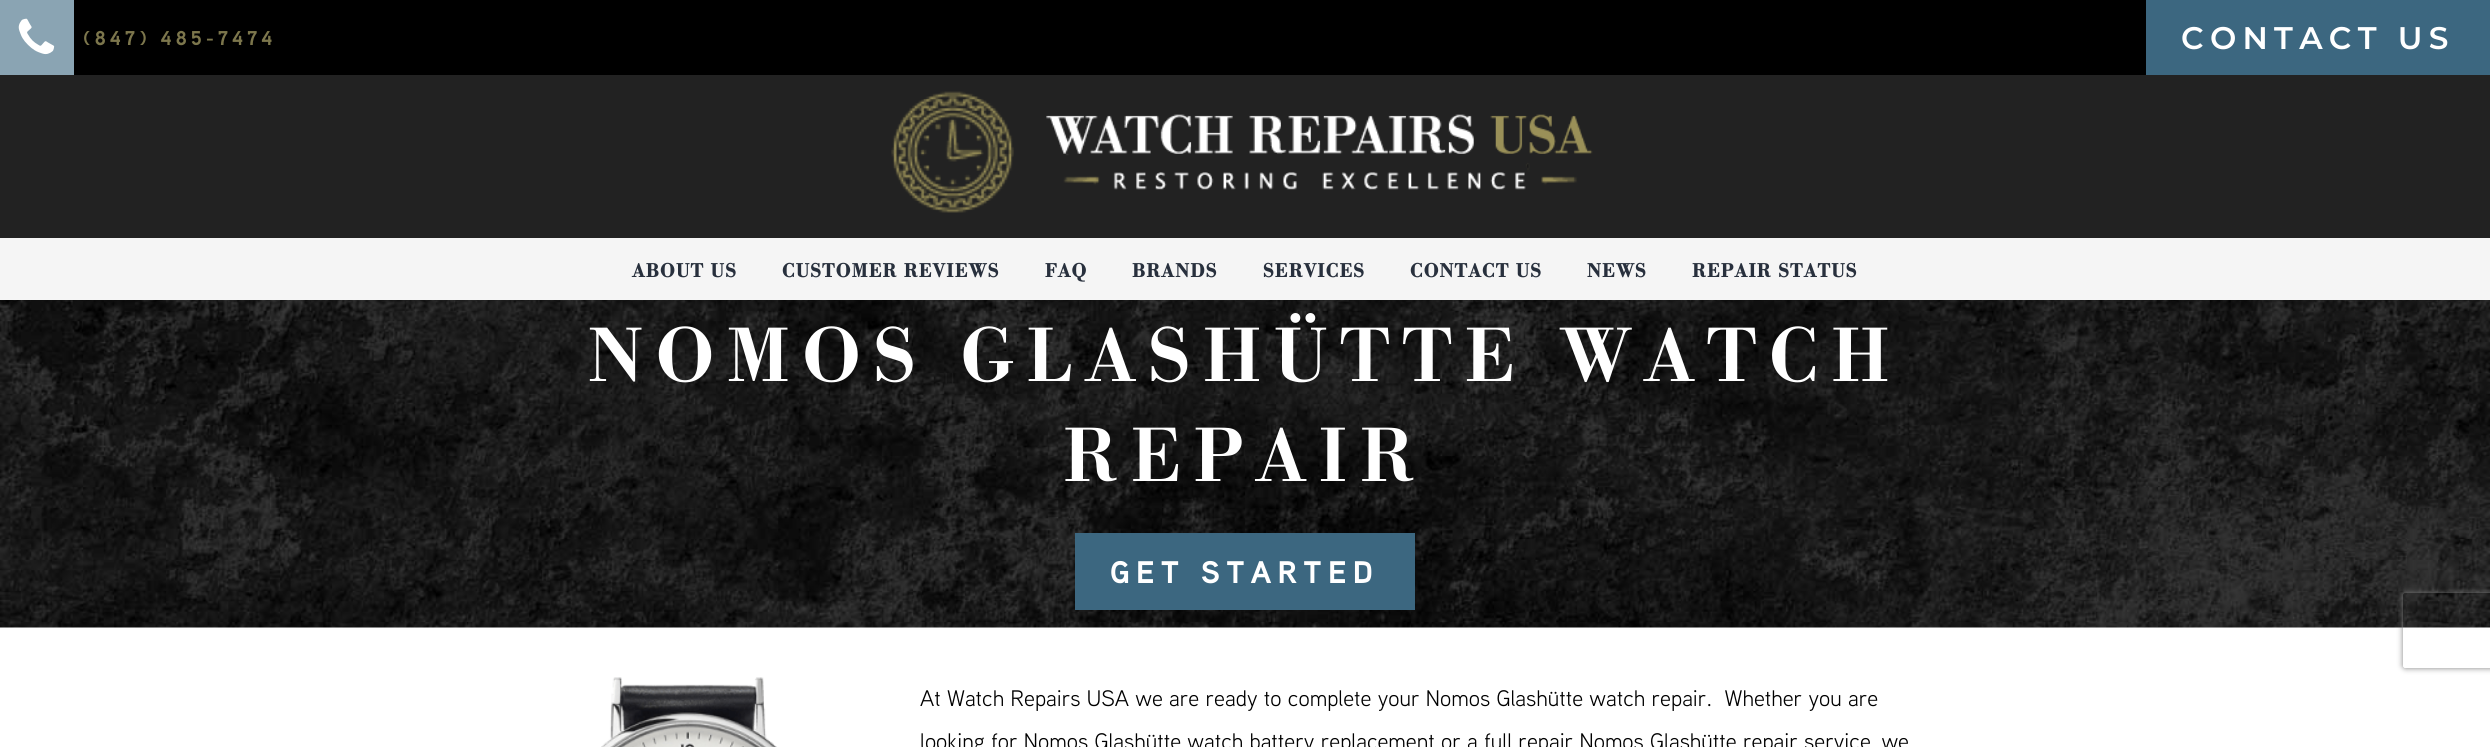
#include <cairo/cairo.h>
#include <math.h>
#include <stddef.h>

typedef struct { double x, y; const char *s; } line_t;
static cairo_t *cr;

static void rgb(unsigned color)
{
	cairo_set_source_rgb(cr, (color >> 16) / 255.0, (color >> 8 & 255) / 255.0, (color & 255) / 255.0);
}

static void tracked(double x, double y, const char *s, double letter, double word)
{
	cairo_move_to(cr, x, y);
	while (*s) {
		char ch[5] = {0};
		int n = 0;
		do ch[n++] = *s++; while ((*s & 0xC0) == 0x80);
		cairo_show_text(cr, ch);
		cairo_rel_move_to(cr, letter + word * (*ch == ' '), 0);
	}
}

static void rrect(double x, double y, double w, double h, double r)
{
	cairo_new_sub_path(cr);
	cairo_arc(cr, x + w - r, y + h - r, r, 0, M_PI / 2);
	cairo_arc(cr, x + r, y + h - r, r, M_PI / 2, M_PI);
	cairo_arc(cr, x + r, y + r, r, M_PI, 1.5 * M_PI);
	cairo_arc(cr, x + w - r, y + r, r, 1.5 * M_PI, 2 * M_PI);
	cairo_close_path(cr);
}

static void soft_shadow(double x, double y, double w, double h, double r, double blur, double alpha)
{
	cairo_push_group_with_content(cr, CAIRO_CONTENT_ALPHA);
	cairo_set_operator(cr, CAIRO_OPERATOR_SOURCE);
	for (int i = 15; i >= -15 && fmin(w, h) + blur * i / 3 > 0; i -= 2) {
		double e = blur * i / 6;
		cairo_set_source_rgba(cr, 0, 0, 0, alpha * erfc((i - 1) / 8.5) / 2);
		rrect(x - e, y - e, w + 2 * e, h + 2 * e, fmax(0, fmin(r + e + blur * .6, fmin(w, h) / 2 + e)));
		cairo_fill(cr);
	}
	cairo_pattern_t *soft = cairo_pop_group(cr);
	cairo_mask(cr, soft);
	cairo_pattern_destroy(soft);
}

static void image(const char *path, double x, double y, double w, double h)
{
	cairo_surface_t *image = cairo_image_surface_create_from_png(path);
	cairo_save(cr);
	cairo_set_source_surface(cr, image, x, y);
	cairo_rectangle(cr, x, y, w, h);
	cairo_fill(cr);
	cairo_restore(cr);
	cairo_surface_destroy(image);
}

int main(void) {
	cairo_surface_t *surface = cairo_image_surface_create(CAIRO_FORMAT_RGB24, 2490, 747);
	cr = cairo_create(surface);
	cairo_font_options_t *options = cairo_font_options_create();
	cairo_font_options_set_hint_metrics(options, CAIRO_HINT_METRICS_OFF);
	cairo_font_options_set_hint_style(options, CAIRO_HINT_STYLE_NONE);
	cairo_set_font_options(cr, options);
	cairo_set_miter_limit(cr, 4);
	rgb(0xffffff);
	cairo_paint(cr);
	rgb(0x000000);
	cairo_rectangle(cr, 74, 0, 2072, 75);
	cairo_fill(cr);
	rgb(0x8aa4b3);
	cairo_rectangle(cr, 0, 0, 74, 75);
	cairo_fill(cr);
	image("img/1.png", 18, 18, 37, 37);
	rgb(0x3c6780);
	cairo_rectangle(cr, 2146, 0, 344, 75);
	cairo_fill(cr);
	rgb(0x222222);
	cairo_rectangle(cr, 0, 75, 2490, 163);
	cairo_fill(cr);
	image("img/2.png", 891, 91, 702, 122);
	rgb(0xf5f5f5);
	cairo_rectangle(cr, 0, 238, 2490, 62);
	cairo_fill(cr);
	image("img/3.png", 0, 300, 2490, 328);
	rgb(0x3c6780);
	cairo_rectangle(cr, 1075, 533, 340, 77);
	cairo_fill(cr);
	image("img/4.png", 601, 677, 176, 70);
	cairo_save(cr);
	cairo_set_fill_rule(cr, CAIRO_FILL_RULE_EVEN_ODD);
	cairo_new_path(cr);
	cairo_move_to(cr, 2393, 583);
	cairo_line_to(cr, 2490, 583);
	cairo_line_to(cr, 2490, 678);
	cairo_line_to(cr, 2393, 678);
	cairo_close_path(cr);
	cairo_move_to(cr, 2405.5, 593);
	cairo_line_to(cr, 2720.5, 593);
	cairo_curve_to(cr, 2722, 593, 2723, 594, 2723, 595.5);
	cairo_line_to(cr, 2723, 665.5);
	cairo_curve_to(cr, 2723, 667, 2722, 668, 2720.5, 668);
	cairo_line_to(cr, 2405.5, 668);
	cairo_curve_to(cr, 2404, 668, 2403, 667, 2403, 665.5);
	cairo_line_to(cr, 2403, 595.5);
	cairo_curve_to(cr, 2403, 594, 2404, 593, 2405.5, 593);
	cairo_close_path(cr);
	cairo_clip(cr);
	rgb(0x808080);
	soft_shadow(2403, 593, 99, 75, 2.5, 3, 1);
	cairo_restore(cr);
	cairo_select_font_face(cr, "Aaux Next", CAIRO_FONT_SLANT_NORMAL, CAIRO_FONT_WEIGHT_BOLD);
	cairo_set_font_size(cr, 20);
	rgb(0x7c764c);
	tracked(83, 45, "(847) 485-7474", 4, 0);
	cairo_select_font_face(cr, "Montserrat SemiBold", CAIRO_FONT_SLANT_NORMAL, CAIRO_FONT_WEIGHT_NORMAL);
	cairo_set_font_size(cr, 31.25);
	rgb(0xffffff);
	tracked(2181, 49, "CONTACT US", 6.25, 0);
	cairo_select_font_face(cr, "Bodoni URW", CAIRO_FONT_SLANT_NORMAL, CAIRO_FONT_WEIGHT_BOLD);
	cairo_set_font_size(cr, 20);
	rgb(0x28303d);
	{
		static const line_t items[] = {
			{632, 277, "ABOUT US"},
			{782, 277, "CUSTOMER REVIEWS"},
			{1045, 277, "FAQ"},
			{1132, 277, "BRANDS"},
			{1263, 277, "SERVICES"},
			{1410, 277, "CONTACT US"},
			{1587, 277, "NEWS"},
			{1692, 277, "REPAIR STATUS"},
		};
		for (size_t i = 0; i < sizeof items / sizeof *items; i++) {
			tracked(items[i].x, items[i].y, items[i].s, 1.25, 0);
		}
	}
	cairo_select_font_face(cr, "Bodoni URW Medium", CAIRO_FONT_SLANT_NORMAL, CAIRO_FONT_WEIGHT_NORMAL);
	cairo_set_font_size(cr, 80);
	rgb(0xffffff);
	tracked(588, 381, "NOMOS GLASHÜTTE WATCH", 12.5, 0);
	tracked(1063, 481, "REPAIR", 12.5, 0);
	cairo_select_font_face(cr, "Aaux Next", CAIRO_FONT_SLANT_NORMAL, CAIRO_FONT_WEIGHT_BOLD);
	cairo_set_font_size(cr, 31.25);
	tracked(1110, 583, "GET STARTED", 6.25, 0);
	cairo_select_font_face(cr, "Aaux Next", CAIRO_FONT_SLANT_NORMAL, CAIRO_FONT_WEIGHT_NORMAL);
	cairo_set_font_size(cr, 22.5);
	rgb(0x000000);
	cairo_move_to(cr, 920, 706);
	cairo_show_text(cr, "At Watch Repairs USA we are ready to complete your Nomos Glashütte watch repair.  Whether you are");
	cairo_move_to(cr, 920, 749);
	cairo_show_text(cr, "looking for Nomos Glashütte watch battery replacement or a full repair Nomos Glashütte repair service, we");
	cairo_surface_write_to_png(surface, "page.png");
	cairo_font_options_destroy(options);
	cairo_destroy(cr);
	cairo_surface_destroy(surface);
	return 0;
}
